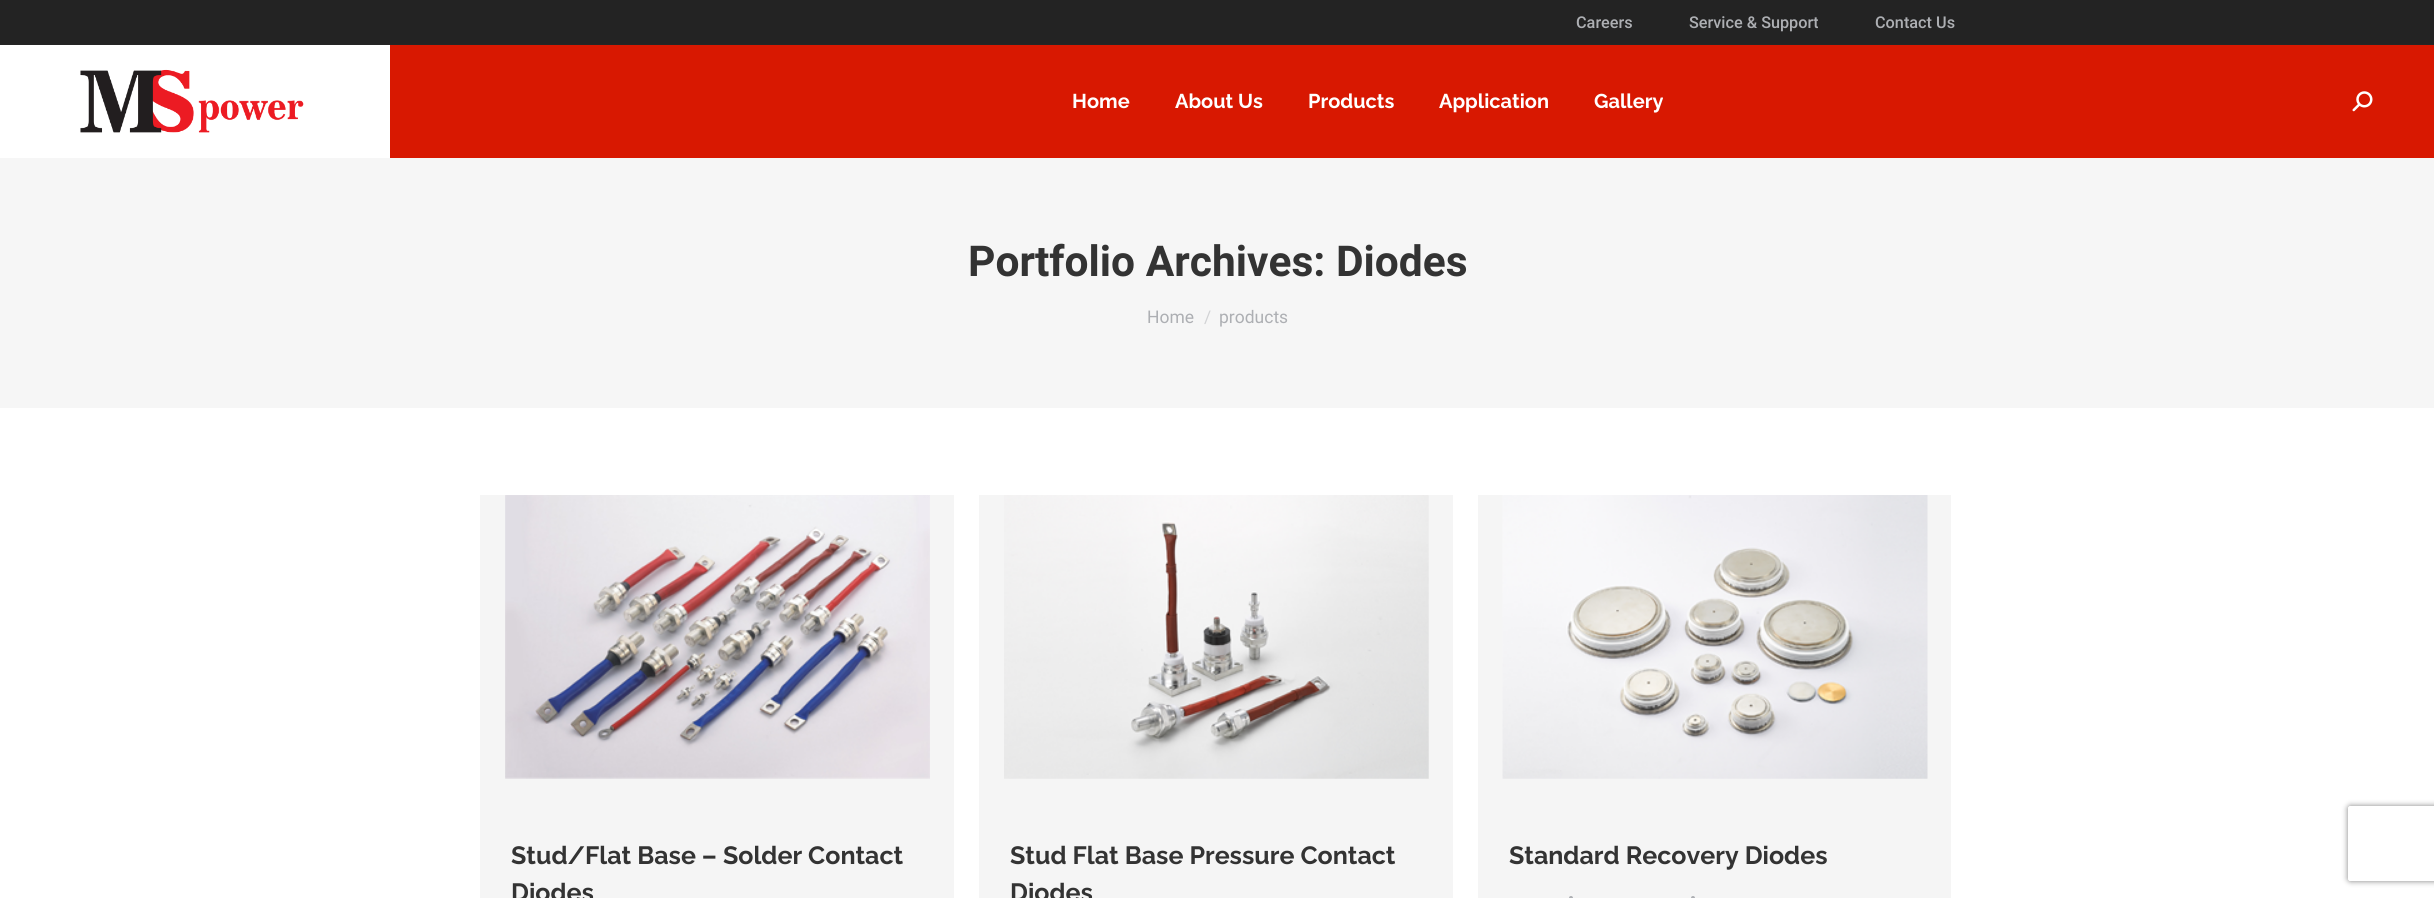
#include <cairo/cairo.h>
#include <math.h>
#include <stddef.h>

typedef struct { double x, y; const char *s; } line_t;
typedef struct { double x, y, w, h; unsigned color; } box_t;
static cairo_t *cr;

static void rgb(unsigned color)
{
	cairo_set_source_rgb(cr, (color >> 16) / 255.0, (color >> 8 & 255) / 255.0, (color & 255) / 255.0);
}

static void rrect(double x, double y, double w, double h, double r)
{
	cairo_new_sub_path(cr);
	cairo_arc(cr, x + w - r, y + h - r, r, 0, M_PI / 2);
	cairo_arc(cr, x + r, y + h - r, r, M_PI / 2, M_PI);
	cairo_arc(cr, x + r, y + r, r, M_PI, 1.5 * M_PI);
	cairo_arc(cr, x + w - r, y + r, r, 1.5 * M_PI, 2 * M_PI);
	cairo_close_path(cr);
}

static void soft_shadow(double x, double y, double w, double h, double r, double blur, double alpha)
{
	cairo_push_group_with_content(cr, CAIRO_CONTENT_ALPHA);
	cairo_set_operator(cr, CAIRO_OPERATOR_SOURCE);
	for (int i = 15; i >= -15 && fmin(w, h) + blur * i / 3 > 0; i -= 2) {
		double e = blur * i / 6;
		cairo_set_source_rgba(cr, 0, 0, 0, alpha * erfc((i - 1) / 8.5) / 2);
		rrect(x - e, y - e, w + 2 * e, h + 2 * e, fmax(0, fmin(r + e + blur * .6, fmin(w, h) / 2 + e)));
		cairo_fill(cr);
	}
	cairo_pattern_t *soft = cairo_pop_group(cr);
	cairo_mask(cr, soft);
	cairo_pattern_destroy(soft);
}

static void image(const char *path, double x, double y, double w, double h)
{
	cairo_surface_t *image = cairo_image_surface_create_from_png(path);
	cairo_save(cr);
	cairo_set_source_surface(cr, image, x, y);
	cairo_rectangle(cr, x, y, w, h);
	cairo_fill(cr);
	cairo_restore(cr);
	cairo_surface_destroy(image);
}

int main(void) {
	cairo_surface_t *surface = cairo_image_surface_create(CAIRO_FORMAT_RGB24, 2434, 898);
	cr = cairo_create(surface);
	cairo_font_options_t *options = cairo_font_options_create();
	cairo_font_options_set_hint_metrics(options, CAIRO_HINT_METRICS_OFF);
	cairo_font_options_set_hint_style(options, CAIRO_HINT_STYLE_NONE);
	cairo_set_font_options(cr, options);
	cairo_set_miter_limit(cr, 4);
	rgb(0xffffff);
	cairo_paint(cr);
	{
		static const box_t items[] = {
			{390, 45, 2044, 113, 0xd81801},
			{0, 0, 2434, 44, 0x232323},
			{0, 44, 2434, 1, 0x252525},
		};
		for (size_t i = 0; i < sizeof items / sizeof *items; i++) {
			rgb(items[i].color);
			cairo_rectangle(cr, items[i].x, items[i].y, items[i].w, items[i].h);
			cairo_fill(cr);
		}
	}
	image("img/1.png", 80, 69, 224, 64);
	image("img/2.png", 2352, 91, 21, 21);
	rgb(0xf6f6f6);
	cairo_rectangle(cr, 0, 158, 2434, 250);
	cairo_fill(cr);
	rgb(0xf5f5f5);
	cairo_rectangle(cr, 480, 495, 474, 403);
	cairo_fill(cr);
	image("img/3.png", 505, 495, 425, 284);
	cairo_rectangle(cr, 979, 495, 474, 403);
	cairo_fill(cr);
	image("img/4.png", 1004, 495, 425, 284);
	cairo_rectangle(cr, 1478, 495, 473, 403);
	cairo_fill(cr);
	image("img/5.png", 1502, 495, 426, 284);
	rgb(0xadafb3);
	cairo_arc(cr, 1571, 898, 2, 0, 2 * M_PI);
	cairo_fill(cr);
	cairo_arc(cr, 1693, 898, 2, 0, 2 * M_PI);
	cairo_fill(cr);
	cairo_save(cr);
	cairo_set_fill_rule(cr, CAIRO_FILL_RULE_EVEN_ODD);
	cairo_new_path(cr);
	cairo_move_to(cr, 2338, 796);
	cairo_line_to(cr, 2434, 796);
	cairo_line_to(cr, 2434, 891);
	cairo_line_to(cr, 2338, 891);
	cairo_close_path(cr);
	cairo_move_to(cr, 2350.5, 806);
	cairo_line_to(cr, 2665.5, 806);
	cairo_curve_to(cr, 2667, 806, 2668, 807, 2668, 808.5);
	cairo_line_to(cr, 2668, 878.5);
	cairo_curve_to(cr, 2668, 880, 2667, 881, 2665.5, 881);
	cairo_line_to(cr, 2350.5, 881);
	cairo_curve_to(cr, 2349, 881, 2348, 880, 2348, 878.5);
	cairo_line_to(cr, 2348, 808.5);
	cairo_curve_to(cr, 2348, 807, 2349, 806, 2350.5, 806);
	cairo_close_path(cr);
	cairo_clip(cr);
	rgb(0x808080);
	soft_shadow(2348, 806, 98, 75, 2.5, 3, 1);
	cairo_restore(cr);
	cairo_select_font_face(cr, "Roboto Medium", CAIRO_FONT_SLANT_NORMAL, CAIRO_FONT_WEIGHT_NORMAL);
	cairo_set_font_size(cr, 16.25);
	{
		static const line_t items[] = {
			{1576, 28, "Careers"},
			{1689, 28, "Service & Support"},
			{1875, 28, "Contact Us"},
		};
		for (size_t i = 0; i < sizeof items / sizeof *items; i++) {
			cairo_move_to(cr, items[i].x, items[i].y);
			cairo_show_text(cr, items[i].s);
		}
	}
	cairo_select_font_face(cr, "Raleway Thin", CAIRO_FONT_SLANT_NORMAL, CAIRO_FONT_WEIGHT_NORMAL);
	cairo_set_font_size(cr, 20);
	rgb(0xffffff);
	{
		static const line_t items[] = {
			{1072, 108, "Home"},
			{1175, 108, "About Us"},
			{1308, 108, "Products"},
			{1439, 108, "Application"},
			{1594, 108, "Gallery"},
		};
		for (size_t i = 0; i < sizeof items / sizeof *items; i++) {
			cairo_move_to(cr, items[i].x, items[i].y);
			cairo_show_text(cr, items[i].s);
		}
	}
	cairo_select_font_face(cr, "Roboto", CAIRO_FONT_SLANT_NORMAL, CAIRO_FONT_WEIGHT_BOLD);
	cairo_set_font_size(cr, 42.5);
	rgb(0x333333);
	cairo_move_to(cr, 968, 276);
	cairo_show_text(cr, "Portfolio Archives: Diodes");
	cairo_select_font_face(cr, "Roboto", CAIRO_FONT_SLANT_NORMAL, CAIRO_FONT_WEIGHT_NORMAL);
	cairo_set_font_size(cr, 17.5);
	rgb(0xadafb3);
	cairo_move_to(cr, 1147, 323);
	cairo_show_text(cr, "Home");
	rgb(0xd2d3d5);
	cairo_move_to(cr, 1204, 323);
	cairo_show_text(cr, "/");
	rgb(0xadafb3);
	cairo_move_to(cr, 1219, 323);
	cairo_show_text(cr, "products");
	cairo_select_font_face(cr, "Raleway Thin", CAIRO_FONT_SLANT_NORMAL, CAIRO_FONT_WEIGHT_NORMAL);
	cairo_set_font_size(cr, 25);
	rgb(0x333333);
	{
		static const line_t items[] = {
			{511, 864, "Stud/Flat Base – Solder Contact"},
			{511, 901, "Diodes"},
			{1010, 864, "Stud Flat Base Pressure Contact"},
			{1010, 901, "Diodes"},
			{1509, 864, "Standard Recovery Diodes"},
		};
		for (size_t i = 0; i < sizeof items / sizeof *items; i++) {
			cairo_move_to(cr, items[i].x, items[i].y);
			cairo_show_text(cr, items[i].s);
		}
	}
	cairo_surface_write_to_png(surface, "page.png");
	cairo_font_options_destroy(options);
	cairo_destroy(cr);
	cairo_surface_destroy(surface);
	return 0;
}
